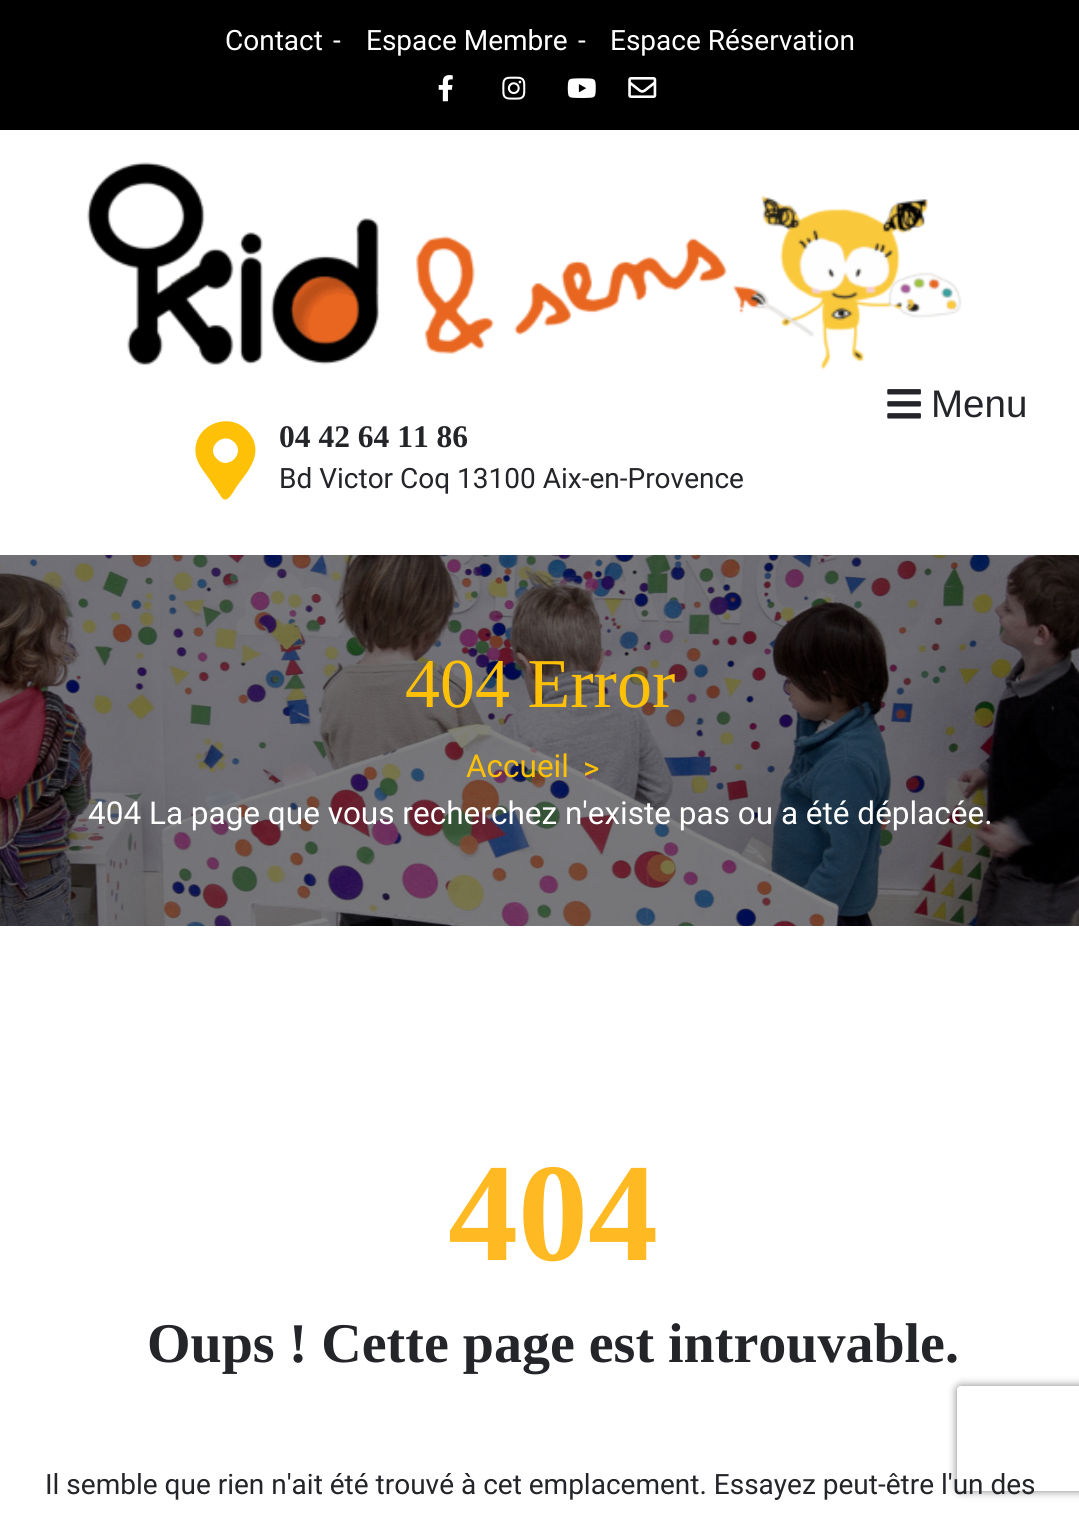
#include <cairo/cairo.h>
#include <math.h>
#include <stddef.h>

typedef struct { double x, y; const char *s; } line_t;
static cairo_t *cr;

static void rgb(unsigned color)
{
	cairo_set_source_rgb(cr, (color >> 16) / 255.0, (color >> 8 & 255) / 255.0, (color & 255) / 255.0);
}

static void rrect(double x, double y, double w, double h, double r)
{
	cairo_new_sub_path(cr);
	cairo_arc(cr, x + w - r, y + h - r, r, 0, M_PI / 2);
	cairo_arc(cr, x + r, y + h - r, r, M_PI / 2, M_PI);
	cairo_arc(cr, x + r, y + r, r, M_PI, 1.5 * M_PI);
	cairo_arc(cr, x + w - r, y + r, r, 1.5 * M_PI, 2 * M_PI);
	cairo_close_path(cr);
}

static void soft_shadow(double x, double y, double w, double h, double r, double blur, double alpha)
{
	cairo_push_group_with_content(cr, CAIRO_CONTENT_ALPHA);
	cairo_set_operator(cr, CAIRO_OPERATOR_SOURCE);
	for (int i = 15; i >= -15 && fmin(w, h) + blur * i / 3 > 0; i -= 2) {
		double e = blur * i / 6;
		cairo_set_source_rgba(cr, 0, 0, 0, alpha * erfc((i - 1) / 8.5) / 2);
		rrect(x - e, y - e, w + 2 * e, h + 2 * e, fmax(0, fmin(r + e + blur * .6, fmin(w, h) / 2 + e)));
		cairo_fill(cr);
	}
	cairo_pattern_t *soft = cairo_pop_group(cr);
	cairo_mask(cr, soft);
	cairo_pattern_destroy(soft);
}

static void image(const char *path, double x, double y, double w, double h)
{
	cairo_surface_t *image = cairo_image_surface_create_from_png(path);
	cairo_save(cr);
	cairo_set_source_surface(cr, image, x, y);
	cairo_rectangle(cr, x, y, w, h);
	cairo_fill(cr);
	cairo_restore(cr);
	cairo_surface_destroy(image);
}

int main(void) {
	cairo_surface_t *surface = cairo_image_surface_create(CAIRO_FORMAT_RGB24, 1079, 1514);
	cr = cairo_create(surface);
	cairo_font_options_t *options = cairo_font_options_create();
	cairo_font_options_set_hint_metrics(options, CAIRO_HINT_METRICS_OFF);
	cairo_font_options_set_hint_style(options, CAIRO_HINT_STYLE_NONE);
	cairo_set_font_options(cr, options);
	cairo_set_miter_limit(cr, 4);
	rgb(0xffffff);
	cairo_paint(cr);
	rgb(0x000000);
	cairo_rectangle(cr, 0, 0, 1079, 130);
	cairo_fill(cr);
	image("img/1.png", 438, 75, 15, 27);
	image("img/2.png", 502, 76, 24, 24);
	image("img/3.png", 567, 78, 29, 20);
	image("img/4.png", 628, 77, 29, 21);
	image("img/5.png", 87, 162, 875, 208);
	image("img/6.png", 887, 389, 34, 30);
	rgb(0xffc107);
	cairo_new_path(cr);
	cairo_move_to(cr, 222, 498);
	cairo_line_to(cr, 210, 480);
	cairo_curve_to(cr, 205, 473, 198, 465, 196, 456);
	cairo_curve_to(cr, 190, 425, 232, 408, 250, 434);
	cairo_curve_to(cr, 264, 454, 248, 471, 237, 486);
	cairo_curve_to(cr, 235, 489, 230, 498, 227, 499);
	cairo_curve_to(cr, 226, 500, 224, 500, 222, 498);
	cairo_close_path(cr);
	cairo_move_to(cr, 217, 459);
	cairo_curve_to(cr, 228, 471, 246, 453, 234, 442);
	cairo_curve_to(cr, 223, 431, 205, 448, 217, 459);
	cairo_close_path(cr);
	cairo_fill(cr);
	image("img/7.png", 0, 555, 1079, 371);
	cairo_save(cr);
	cairo_set_fill_rule(cr, CAIRO_FILL_RULE_EVEN_ODD);
	cairo_new_path(cr);
	cairo_move_to(cr, 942, 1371);
	cairo_line_to(cr, 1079, 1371);
	cairo_line_to(cr, 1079, 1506);
	cairo_line_to(cr, 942, 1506);
	cairo_close_path(cr);
	cairo_move_to(cr, 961, 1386);
	cairo_line_to(cr, 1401, 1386);
	cairo_curve_to(cr, 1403, 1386, 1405, 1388, 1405, 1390);
	cairo_line_to(cr, 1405, 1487);
	cairo_curve_to(cr, 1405, 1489, 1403, 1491, 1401, 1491);
	cairo_line_to(cr, 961, 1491);
	cairo_curve_to(cr, 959, 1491, 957, 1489, 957, 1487);
	cairo_line_to(cr, 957, 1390);
	cairo_curve_to(cr, 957, 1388, 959, 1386, 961, 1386);
	cairo_close_path(cr);
	cairo_clip(cr);
	rgb(0x808080);
	soft_shadow(957, 1386, 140, 105, 4, 4.5, 1);
	cairo_restore(cr);
	cairo_select_font_face(cr, "Roboto", CAIRO_FONT_SLANT_NORMAL, CAIRO_FONT_WEIGHT_NORMAL);
	cairo_set_font_size(cr, 28);
	rgb(0xffffff);
	{
		static const line_t items[] = {
			{225, 50, "Contact"},
			{333, 50, "-"},
			{366, 50, "Espace Membre"},
			{578, 50, "-"},
			{610, 50, "Espace Réservation"},
		};
		for (size_t i = 0; i < sizeof items / sizeof *items; i++) {
			cairo_move_to(cr, items[i].x, items[i].y);
			cairo_show_text(cr, items[i].s);
		}
	}
	cairo_select_font_face(cr, "Liberation Sans", CAIRO_FONT_SLANT_NORMAL, CAIRO_FONT_WEIGHT_NORMAL);
	cairo_set_font_size(cr, 38.5);
	rgb(0x232529);
	cairo_move_to(cr, 931, 417);
	cairo_show_text(cr, "Menu");
	cairo_select_font_face(cr, "Liberation Serif", CAIRO_FONT_SLANT_NORMAL, CAIRO_FONT_WEIGHT_BOLD);
	cairo_set_font_size(cr, 31.5);
	cairo_move_to(cr, 279, 447);
	cairo_show_text(cr, "04 42 64 11 86");
	cairo_select_font_face(cr, "Roboto", CAIRO_FONT_SLANT_NORMAL, CAIRO_FONT_WEIGHT_NORMAL);
	cairo_set_font_size(cr, 28);
	cairo_move_to(cr, 279, 488);
	cairo_show_text(cr, "Bd Victor Coq 13100 Aix-en-Provence");
	cairo_select_font_face(cr, "Liberation Serif", CAIRO_FONT_SLANT_NORMAL, CAIRO_FONT_WEIGHT_NORMAL);
	cairo_set_font_size(cr, 70);
	rgb(0xffc107);
	cairo_move_to(cr, 405, 707);
	cairo_show_text(cr, "404 Error");
	cairo_select_font_face(cr, "Roboto", CAIRO_FONT_SLANT_NORMAL, CAIRO_FONT_WEIGHT_NORMAL);
	cairo_set_font_size(cr, 31.5);
	cairo_move_to(cr, 466, 777);
	cairo_show_text(cr, "Accueil");
	cairo_move_to(cr, 583, 779);
	cairo_show_text(cr, ">");
	rgb(0xffffff);
	cairo_move_to(cr, 88, 824);
	cairo_show_text(cr, "404 La page que vous recherchez n'existe pas ou a été déplacée.");
	cairo_select_font_face(cr, "Liberation Serif", CAIRO_FONT_SLANT_NORMAL, CAIRO_FONT_WEIGHT_BOLD);
	cairo_set_font_size(cr, 140);
	rgb(0xffb923);
	cairo_move_to(cr, 448, 1260);
	cairo_show_text(cr, "404");
	cairo_set_font_size(cr, 56);
	rgb(0x232529);
	cairo_move_to(cr, 147, 1362);
	cairo_show_text(cr, "Oups ! Cette page est introuvable.");
	cairo_select_font_face(cr, "Roboto", CAIRO_FONT_SLANT_NORMAL, CAIRO_FONT_WEIGHT_NORMAL);
	cairo_set_font_size(cr, 28);
	cairo_move_to(cr, 45, 1494);
	cairo_show_text(cr, "Il semble que rien n'ait été trouvé à cet emplacement. Essayez peut-être l'un des");
	cairo_surface_write_to_png(surface, "page.png");
	cairo_font_options_destroy(options);
	cairo_destroy(cr);
	cairo_surface_destroy(surface);
	return 0;
}
